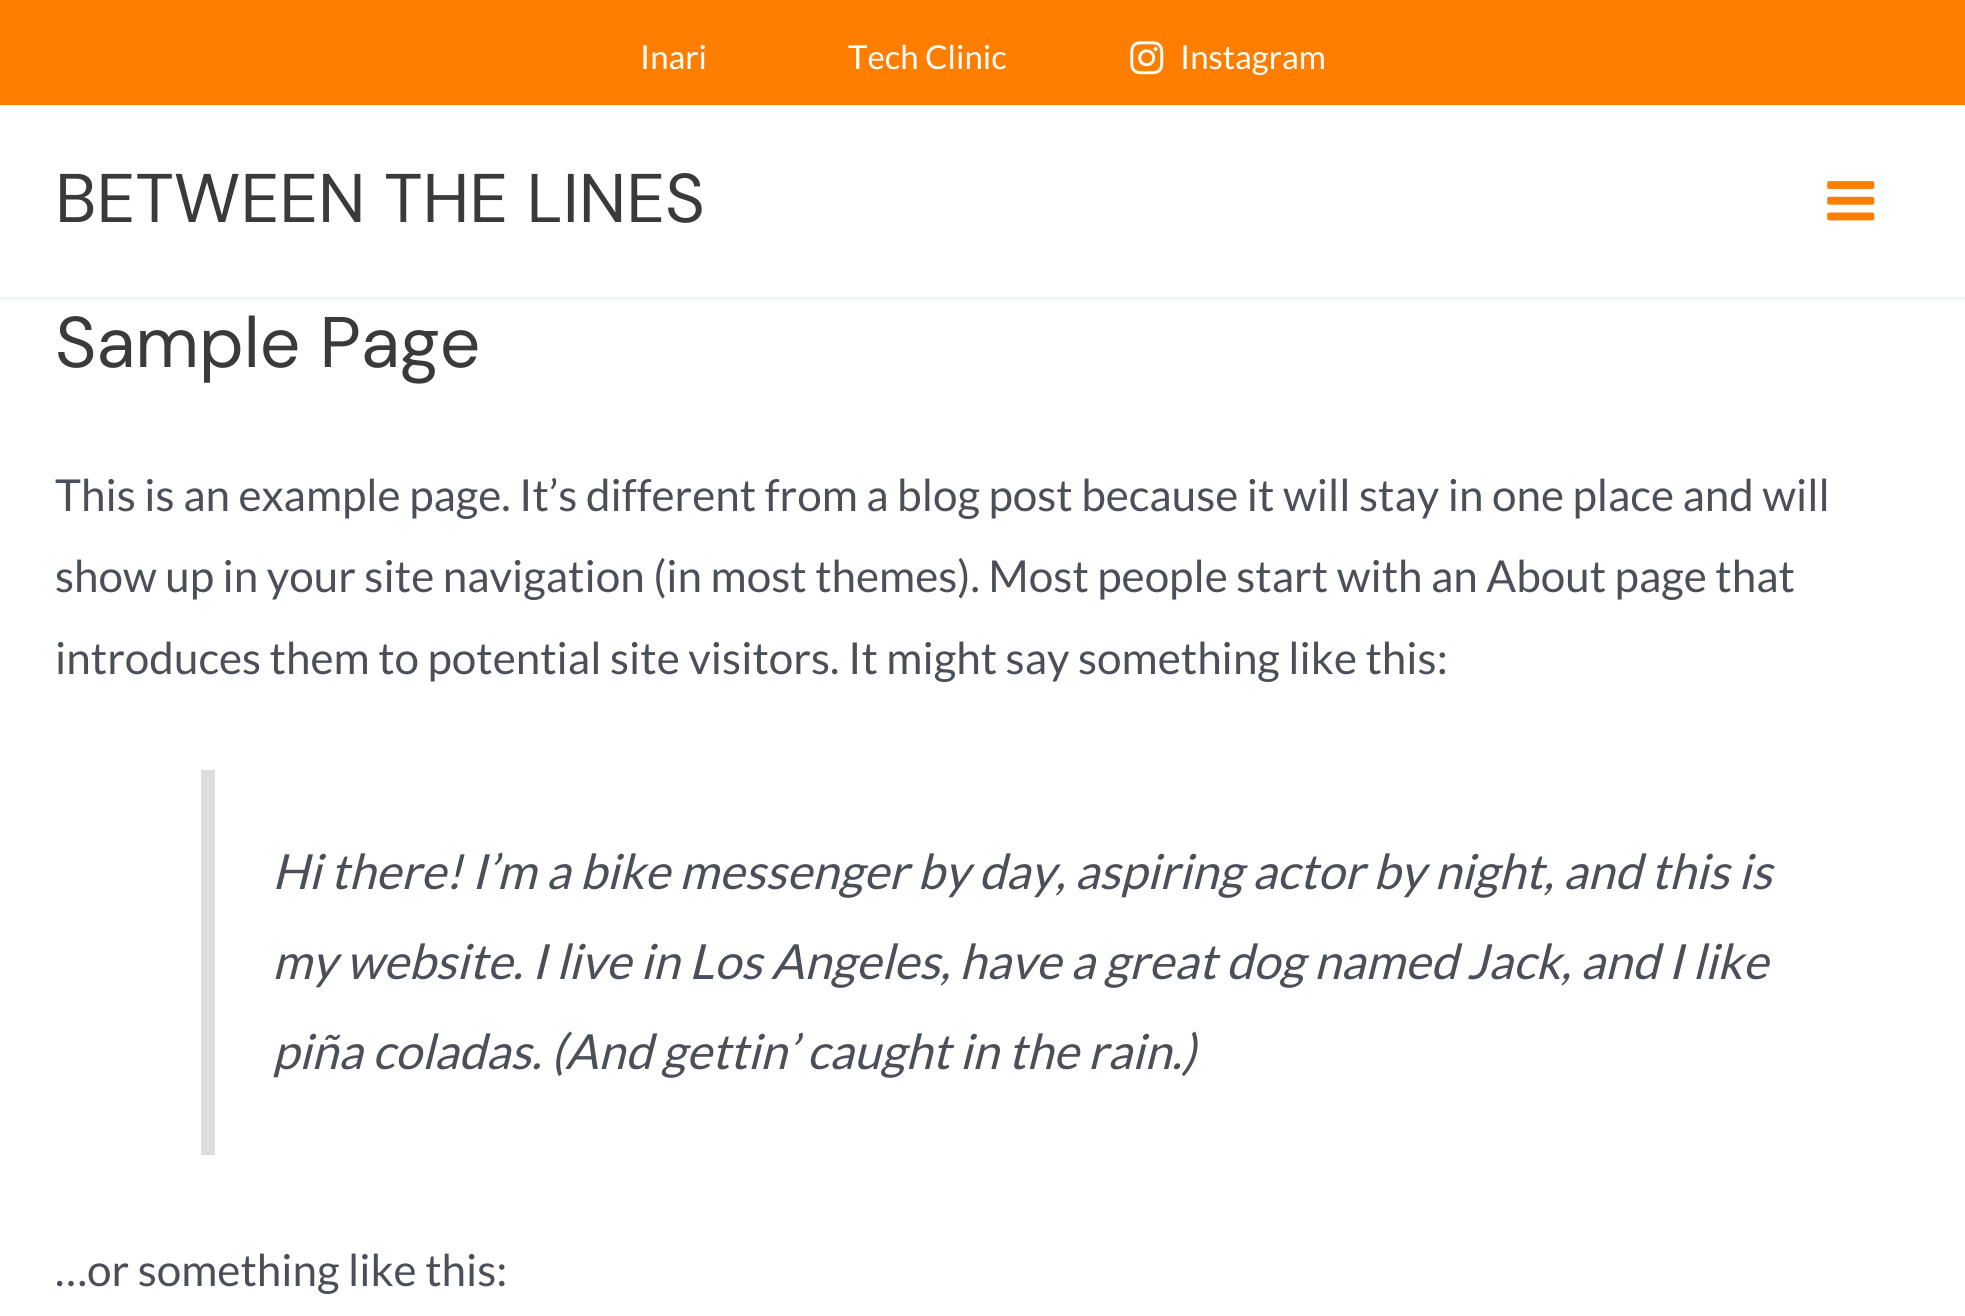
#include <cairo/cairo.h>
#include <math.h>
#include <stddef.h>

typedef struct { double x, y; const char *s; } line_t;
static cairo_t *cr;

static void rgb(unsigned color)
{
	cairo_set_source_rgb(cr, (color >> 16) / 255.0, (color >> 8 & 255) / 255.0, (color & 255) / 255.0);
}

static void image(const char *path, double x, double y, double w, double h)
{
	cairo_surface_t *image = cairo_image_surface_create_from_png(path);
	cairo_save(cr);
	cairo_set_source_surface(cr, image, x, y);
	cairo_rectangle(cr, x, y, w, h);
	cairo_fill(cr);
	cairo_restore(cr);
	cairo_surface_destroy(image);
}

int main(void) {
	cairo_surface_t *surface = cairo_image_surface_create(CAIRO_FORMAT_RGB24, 1965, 1316);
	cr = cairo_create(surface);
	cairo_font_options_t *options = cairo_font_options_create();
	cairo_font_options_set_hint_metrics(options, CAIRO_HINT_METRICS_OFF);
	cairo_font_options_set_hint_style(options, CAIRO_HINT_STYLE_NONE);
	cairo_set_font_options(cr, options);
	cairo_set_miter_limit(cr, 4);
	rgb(0xffffff);
	cairo_paint(cr);
	rgb(0xff7e00);
	cairo_rectangle(cr, 0, 0, 1965, 105);
	cairo_fill(cr);
	image("img/1.png", 1130, 41, 34, 34);
	rgb(0xf2f5f7);
	cairo_rectangle(cr, 0, 297, 1965, 3);
	cairo_fill(cr);
	image("img/2.png", 1827, 181, 48, 40);
	rgb(0xdddddd);
	cairo_rectangle(cr, 201, 770, 14, 385);
	cairo_fill(cr);
	cairo_select_font_face(cr, "Lato", CAIRO_FONT_SLANT_NORMAL, CAIRO_FONT_WEIGHT_NORMAL);
	cairo_set_font_size(cr, 33);
	rgb(0xffffff);
	{
		static const line_t items[] = {
			{640, 69, "Inari"},
			{848, 69, "Tech Clinic"},
			{1180, 69, "Instagram"},
		};
		for (size_t i = 0; i < sizeof items / sizeof *items; i++) {
			cairo_move_to(cr, items[i].x, items[i].y);
			cairo_show_text(cr, items[i].s);
		}
	}
	cairo_select_font_face(cr, "DM Sans", CAIRO_FONT_SLANT_NORMAL, CAIRO_FONT_WEIGHT_NORMAL);
	cairo_set_font_size(cr, 68.75);
	rgb(0x3a3a3a);
	cairo_move_to(cr, 55, 222);
	cairo_show_text(cr, "BETWEEN THE LINES");
	cairo_set_font_size(cr, 71.5);
	cairo_move_to(cr, 55, 367);
	cairo_show_text(cr, "Sample Page");
	cairo_select_font_face(cr, "Lato", CAIRO_FONT_SLANT_NORMAL, CAIRO_FONT_WEIGHT_NORMAL);
	cairo_set_font_size(cr, 44);
	rgb(0x4b4f58);
	{
		static const line_t items[] = {
			{55, 511, "This is an example page. It’s different from a blog post because it will stay in one place and will"},
			{55, 592, "show up in your site navigation (in most themes). Most people start with an About page that"},
			{55, 674, "introduces them to potential site visitors. It might say something like this:"},
		};
		for (size_t i = 0; i < sizeof items / sizeof *items; i++) {
			cairo_move_to(cr, items[i].x, items[i].y);
			cairo_show_text(cr, items[i].s);
		}
	}
	cairo_select_font_face(cr, "Lato", CAIRO_FONT_SLANT_ITALIC, CAIRO_FONT_WEIGHT_NORMAL);
	cairo_set_font_size(cr, 48.4);
	{
		static const line_t items[] = {
			{272, 889, "Hi there! I’m a bike messenger by day, aspiring actor by night, and this is"},
			{272, 979, "my website. I live in Los Angeles, have a great dog named Jack, and I like"},
			{272, 1069, "piña coladas. (And gettin’ caught in the rain.)"},
		};
		for (size_t i = 0; i < sizeof items / sizeof *items; i++) {
			cairo_move_to(cr, items[i].x, items[i].y);
			cairo_show_text(cr, items[i].s);
		}
	}
	cairo_select_font_face(cr, "Lato", CAIRO_FONT_SLANT_NORMAL, CAIRO_FONT_WEIGHT_NORMAL);
	cairo_set_font_size(cr, 44);
	cairo_move_to(cr, 55, 1286);
	cairo_show_text(cr, "…or something like this:");
	cairo_surface_write_to_png(surface, "page.png");
	cairo_font_options_destroy(options);
	cairo_destroy(cr);
	cairo_surface_destroy(surface);
	return 0;
}
